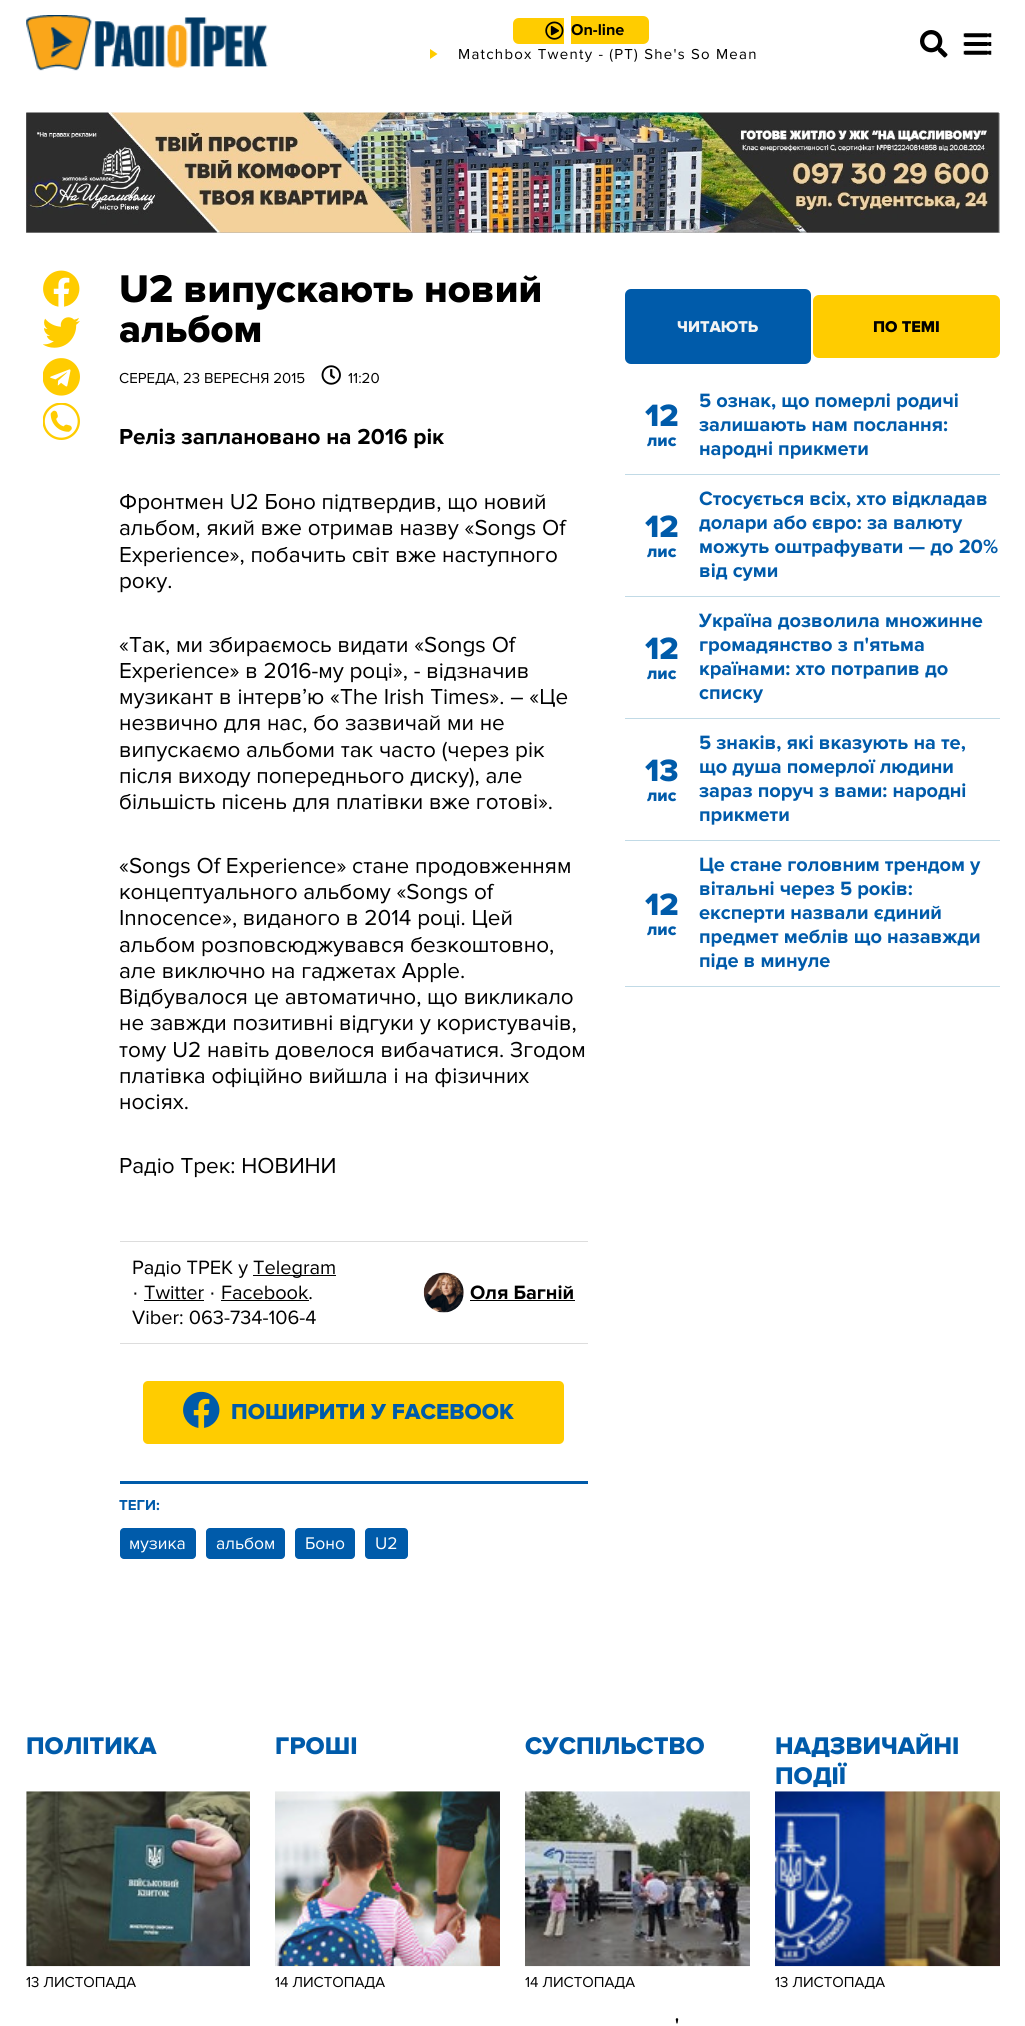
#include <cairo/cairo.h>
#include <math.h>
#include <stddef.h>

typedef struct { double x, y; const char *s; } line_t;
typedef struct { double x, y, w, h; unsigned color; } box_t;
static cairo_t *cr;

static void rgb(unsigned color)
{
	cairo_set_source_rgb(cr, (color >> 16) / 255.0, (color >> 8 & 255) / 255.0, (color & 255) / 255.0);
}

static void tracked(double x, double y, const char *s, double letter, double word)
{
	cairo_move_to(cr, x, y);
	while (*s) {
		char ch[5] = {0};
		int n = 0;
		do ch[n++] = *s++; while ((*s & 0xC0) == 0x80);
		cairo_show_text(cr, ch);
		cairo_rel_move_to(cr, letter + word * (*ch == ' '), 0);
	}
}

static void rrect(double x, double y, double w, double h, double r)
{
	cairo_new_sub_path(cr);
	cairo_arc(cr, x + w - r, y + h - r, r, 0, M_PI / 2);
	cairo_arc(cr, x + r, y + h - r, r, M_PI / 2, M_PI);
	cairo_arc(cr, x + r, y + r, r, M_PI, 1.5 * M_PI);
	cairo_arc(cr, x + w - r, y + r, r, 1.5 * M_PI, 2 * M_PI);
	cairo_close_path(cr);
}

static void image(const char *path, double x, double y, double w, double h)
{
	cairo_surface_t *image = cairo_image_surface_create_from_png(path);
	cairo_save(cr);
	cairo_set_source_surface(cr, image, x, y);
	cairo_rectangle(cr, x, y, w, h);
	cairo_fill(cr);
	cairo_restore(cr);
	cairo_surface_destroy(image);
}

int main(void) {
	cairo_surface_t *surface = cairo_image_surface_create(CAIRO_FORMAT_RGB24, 1025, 2026);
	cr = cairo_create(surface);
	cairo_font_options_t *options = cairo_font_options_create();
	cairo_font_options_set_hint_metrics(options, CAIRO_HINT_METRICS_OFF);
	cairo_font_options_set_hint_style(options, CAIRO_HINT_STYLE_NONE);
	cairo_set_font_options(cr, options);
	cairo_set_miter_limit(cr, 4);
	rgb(0xffffff);
	cairo_paint(cr);
	image("img/1.png", 26, 15, 242, 56);
	rgb(0xffcc00);
	cairo_new_path(cr);
	cairo_move_to(cr, 519, 18);
	cairo_line_to(cr, 564, 18);
	cairo_line_to(cr, 564, 44);
	cairo_line_to(cr, 519, 44);
	cairo_curve_to(cr, 515.5, 44, 513, 41.5, 513, 38);
	cairo_line_to(cr, 513, 24);
	cairo_curve_to(cr, 513, 20.5, 515.5, 18, 519, 18);
	cairo_close_path(cr);
	cairo_fill(cr);
	cairo_new_path(cr);
	cairo_move_to(cr, 571, 16);
	cairo_line_to(cr, 643, 16);
	cairo_curve_to(cr, 646.5, 16, 649, 18.5, 649, 22);
	cairo_line_to(cr, 649, 38);
	cairo_curve_to(cr, 649, 41.5, 646.5, 44, 643, 44);
	cairo_line_to(cr, 571, 44);
	cairo_close_path(cr);
	cairo_fill(cr);
	image("img/2.png", 545, 21, 19, 19);
	cairo_new_path(cr);
	cairo_move_to(cr, 430, 59);
	cairo_line_to(cr, 430, 49);
	cairo_line_to(cr, 437.5, 54);
	cairo_close_path(cr);
	cairo_fill(cr);
	image("img/3.png", 920, 30, 28, 28);
	image("img/4.png", 963, 33, 29, 22);
	rgb(0xb3b3b3);
	cairo_rectangle(cr, 26, 113, 974, 120);
	cairo_fill(cr);
	image("img/5.png", 26, 112, 973, 121);
	image("img/6.png", 43, 270, 37, 37);
	image("img/7.png", 43, 317, 37, 31);
	image("img/8.png", 43, 358, 37, 38);
	image("img/9.png", 43, 403, 37, 37);
	image("img/10.png", 321, 365, 20, 20);
	{
		static const box_t items[] = {
			{120, 1241, 468, 1, 0xdddddd},
			{120, 1343, 468, 1, 0xdddddd},
			{253, 1275, 83, 1, 0x000000},
			{144, 1300, 60, 1, 0x000000},
			{221, 1300, 88, 1, 0x000000},
		};
		for (size_t i = 0; i < sizeof items / sizeof *items; i++) {
			rgb(items[i].color);
			cairo_rectangle(cr, items[i].x, items[i].y, items[i].w, items[i].h);
			cairo_fill(cr);
		}
	}
	image("img/11.png", 423, 1272, 41, 41);
	cairo_rectangle(cr, 470, 1300, 105, 1);
	cairo_fill(cr);
	rgb(0xffcc00);
	rrect(143, 1381, 421, 63, 5);
	cairo_fill(cr);
	image("img/12.png", 183, 1391, 37, 37);
	rgb(0x005baa);
	cairo_rectangle(cr, 120, 1481, 468, 3);
	cairo_fill(cr);
	rrect(120, 1528, 76, 31, 4);
	cairo_fill(cr);
	rrect(206, 1528, 79, 31, 4);
	cairo_fill(cr);
	rrect(295, 1528, 60, 31, 4);
	cairo_fill(cr);
	rrect(365, 1528, 43, 31, 4);
	cairo_fill(cr);
	rrect(625, 289, 186, 75, 6);
	cairo_fill(cr);
	rgb(0xffcc00);
	rrect(813, 295, 187, 63, 6);
	cairo_fill(cr);
	{
		static const box_t items[] = {
			{625, 474, 375, 1, 0xc1dae6},
			{625, 596, 375, 1, 0xc1dae6},
			{625, 718, 375, 1, 0xc1dae6},
			{625, 840, 375, 1, 0xc1dae6},
			{625, 986, 375, 1, 0xc1dae6},
		};
		for (size_t i = 0; i < sizeof items / sizeof *items; i++) {
			rgb(items[i].color);
			cairo_rectangle(cr, items[i].x, items[i].y, items[i].w, items[i].h);
			cairo_fill(cr);
		}
	}
	image("img/13.png", 26, 1791, 224, 176);
	image("img/14.png", 275, 1791, 225, 176);
	image("img/15.png", 525, 1791, 225, 176);
	image("img/16.png", 775, 1791, 225, 176);
	cairo_select_font_face(cr, "Proxima Nova", CAIRO_FONT_SLANT_NORMAL, CAIRO_FONT_WEIGHT_BOLD);
	cairo_set_font_size(cr, 16.25);
	rgb(0x000000);
	cairo_move_to(cr, 571, 35);
	cairo_show_text(cr, "On-line");
	cairo_select_font_face(cr, "Proxima Nova", CAIRO_FONT_SLANT_NORMAL, CAIRO_FONT_WEIGHT_NORMAL);
	cairo_set_font_size(cr, 15);
	tracked(458, 59, "Matchbox Twenty - (РТ) She's So Mean", 1.25, 0);
	cairo_select_font_face(cr, "Proxima Nova ExtraBold", CAIRO_FONT_SLANT_NORMAL, CAIRO_FONT_WEIGHT_NORMAL);
	cairo_set_font_size(cr, 40);
	cairo_move_to(cr, 119, 302);
	cairo_show_text(cr, "U2 випускають новий");
	cairo_move_to(cr, 119, 342);
	cairo_show_text(cr, "альбом");
	cairo_select_font_face(cr, "Proxima Nova", CAIRO_FONT_SLANT_NORMAL, CAIRO_FONT_WEIGHT_NORMAL);
	cairo_set_font_size(cr, 15);
	cairo_move_to(cr, 119, 383);
	cairo_show_text(cr, "СЕРЕДА, 23 ВЕРЕСНЯ 2015");
	cairo_move_to(cr, 348, 383);
	cairo_show_text(cr, "11:20");
	cairo_select_font_face(cr, "Proxima Nova", CAIRO_FONT_SLANT_NORMAL, CAIRO_FONT_WEIGHT_BOLD);
	cairo_set_font_size(cr, 22.5);
	cairo_move_to(cr, 119, 444);
	cairo_show_text(cr, "Реліз заплановано на 2016 рік");
	cairo_select_font_face(cr, "Proxima Nova", CAIRO_FONT_SLANT_NORMAL, CAIRO_FONT_WEIGHT_NORMAL);
	{
		static const line_t items[] = {
			{119, 509, "Фронтмен U2 Боно підтвердив, що новий"},
			{119, 535, "альбом, який вже отримав назву «Songs Of"},
			{119, 562, "Experience», побачить світ вже наступного"},
			{119, 588, "року."},
			{119, 652, "«Так, ми збираємось видати «Songs Of"},
			{119, 678, "Experience» в 2016-му році», - відзначив"},
			{119, 704, "музикант в інтерв’ю «The Irish Times». – «Це"},
			{119, 730, "незвично для нас, бо зазвичай ми не"},
			{119, 757, "випускаємо альбоми так часто (через рік"},
			{119, 783, "після виходу попереднього диску), але"},
			{119, 809, "більшість пісень для платівки вже готові»."},
			{119, 873, "«Songs Of Experience» стане продовженням"},
			{119, 899, "концептуального альбому «Songs of"},
			{119, 925, "Innocence», виданого в 2014 році. Цей"},
			{119, 952, "альбом розповсюджувався безкоштовно,"},
			{119, 978, "але виключно на гаджетах Apple."},
			{119, 1004, "Відбувалося це автоматично, що викликало"},
			{119, 1030, "не завжди позитивні відгуки у користувачів,"},
			{119, 1057, "тому U2 навіть довелося вибачатися. Згодом"},
			{119, 1083, "платівка офіційно вийшла і на фізичних"},
			{119, 1109, "носіях."},
			{119, 1173, "Радіо Трек: НОВИНИ"},
		};
		for (size_t i = 0; i < sizeof items / sizeof *items; i++) {
			cairo_move_to(cr, items[i].x, items[i].y);
			cairo_show_text(cr, items[i].s);
		}
	}
	cairo_set_font_size(cr, 20);
	cairo_move_to(cr, 132, 1274);
	cairo_show_text(cr, "Радіо ТРЕК у");
	cairo_move_to(cr, 253, 1274);
	cairo_show_text(cr, "Telegram");
	cairo_select_font_face(cr, "Liberation Sans", CAIRO_FONT_SLANT_NORMAL, CAIRO_FONT_WEIGHT_NORMAL);
	cairo_move_to(cr, 132, 1299);
	cairo_show_text(cr, "·");
	cairo_select_font_face(cr, "Proxima Nova", CAIRO_FONT_SLANT_NORMAL, CAIRO_FONT_WEIGHT_NORMAL);
	cairo_move_to(cr, 144, 1299);
	cairo_show_text(cr, "Twitter");
	cairo_select_font_face(cr, "Liberation Sans", CAIRO_FONT_SLANT_NORMAL, CAIRO_FONT_WEIGHT_NORMAL);
	cairo_move_to(cr, 209, 1299);
	cairo_show_text(cr, "·");
	cairo_select_font_face(cr, "Proxima Nova", CAIRO_FONT_SLANT_NORMAL, CAIRO_FONT_WEIGHT_NORMAL);
	cairo_move_to(cr, 221, 1299);
	cairo_show_text(cr, "Facebook.");
	cairo_move_to(cr, 132, 1324);
	cairo_show_text(cr, "Viber: 063-734-106-4");
	cairo_select_font_face(cr, "Proxima Nova", CAIRO_FONT_SLANT_NORMAL, CAIRO_FONT_WEIGHT_BOLD);
	cairo_move_to(cr, 470, 1299);
	cairo_show_text(cr, "Оля Багній");
	cairo_select_font_face(cr, "Proxima Nova ExtraBold", CAIRO_FONT_SLANT_NORMAL, CAIRO_FONT_WEIGHT_NORMAL);
	cairo_set_font_size(cr, 22.5);
	rgb(0x005baa);
	cairo_move_to(cr, 231, 1419);
	cairo_show_text(cr, "ПОШИРИТИ У FACEBOOK");
	cairo_select_font_face(cr, "Proxima Nova", CAIRO_FONT_SLANT_NORMAL, CAIRO_FONT_WEIGHT_BOLD);
	cairo_set_font_size(cr, 15);
	cairo_move_to(cr, 119, 1510);
	cairo_show_text(cr, "ТЕГИ:");
	cairo_select_font_face(cr, "Proxima Nova", CAIRO_FONT_SLANT_NORMAL, CAIRO_FONT_WEIGHT_NORMAL);
	cairo_set_font_size(cr, 17.5);
	rgb(0xffffff);
	{
		static const line_t items[] = {
			{129, 1549, "музика"},
			{216, 1549, "альбом"},
			{305, 1549, "Боно"},
			{375, 1549, "U2"},
		};
		for (size_t i = 0; i < sizeof items / sizeof *items; i++) {
			cairo_move_to(cr, items[i].x, items[i].y);
			cairo_show_text(cr, items[i].s);
		}
	}
	cairo_select_font_face(cr, "Proxima Nova ExtraBold", CAIRO_FONT_SLANT_NORMAL, CAIRO_FONT_WEIGHT_NORMAL);
	cairo_set_font_size(cr, 16.25);
	rgb(0xf3f3f3);
	cairo_move_to(cr, 677, 332);
	cairo_show_text(cr, "ЧИТАЮТЬ");
	rgb(0x000000);
	cairo_move_to(cr, 873, 332);
	cairo_show_text(cr, "ПО ТЕМІ");
	cairo_set_font_size(cr, 32);
	rgb(0x005baa);
	cairo_move_to(cr, 645, 426);
	cairo_show_text(cr, "12");
	cairo_set_font_size(cr, 17.5);
	cairo_move_to(cr, 647, 446);
	cairo_show_text(cr, "лис");
	cairo_select_font_face(cr, "Proxima Nova", CAIRO_FONT_SLANT_NORMAL, CAIRO_FONT_WEIGHT_BOLD);
	cairo_set_font_size(cr, 20);
	{
		static const line_t items[] = {
			{699, 407, "5 ознак, що померлі родичі"},
			{699, 431, "залишають нам послання:"},
			{699, 455, "народні прикмети"},
		};
		for (size_t i = 0; i < sizeof items / sizeof *items; i++) {
			cairo_move_to(cr, items[i].x, items[i].y);
			cairo_show_text(cr, items[i].s);
		}
	}
	cairo_select_font_face(cr, "Proxima Nova ExtraBold", CAIRO_FONT_SLANT_NORMAL, CAIRO_FONT_WEIGHT_NORMAL);
	cairo_set_font_size(cr, 32);
	cairo_move_to(cr, 645, 537);
	cairo_show_text(cr, "12");
	cairo_set_font_size(cr, 17.5);
	cairo_move_to(cr, 647, 557);
	cairo_show_text(cr, "лис");
	cairo_select_font_face(cr, "Proxima Nova", CAIRO_FONT_SLANT_NORMAL, CAIRO_FONT_WEIGHT_BOLD);
	cairo_set_font_size(cr, 20);
	{
		static const line_t items[] = {
			{699, 505, "Стосується всіх, хто відкладав"},
			{699, 529, "долари або євро: за валюту"},
			{699, 553, "можуть оштрафувати — до 20%"},
			{699, 577, "від суми"},
		};
		for (size_t i = 0; i < sizeof items / sizeof *items; i++) {
			cairo_move_to(cr, items[i].x, items[i].y);
			cairo_show_text(cr, items[i].s);
		}
	}
	cairo_select_font_face(cr, "Proxima Nova ExtraBold", CAIRO_FONT_SLANT_NORMAL, CAIRO_FONT_WEIGHT_NORMAL);
	cairo_set_font_size(cr, 32);
	cairo_move_to(cr, 645, 659);
	cairo_show_text(cr, "12");
	cairo_set_font_size(cr, 17.5);
	cairo_move_to(cr, 647, 679);
	cairo_show_text(cr, "лис");
	cairo_select_font_face(cr, "Proxima Nova", CAIRO_FONT_SLANT_NORMAL, CAIRO_FONT_WEIGHT_BOLD);
	cairo_set_font_size(cr, 20);
	{
		static const line_t items[] = {
			{699, 627, "Україна дозволила множинне"},
			{699, 651, "громадянство з п'ятьма"},
			{699, 675, "країнами: хто потрапив до"},
			{699, 699, "списку"},
		};
		for (size_t i = 0; i < sizeof items / sizeof *items; i++) {
			cairo_move_to(cr, items[i].x, items[i].y);
			cairo_show_text(cr, items[i].s);
		}
	}
	cairo_select_font_face(cr, "Proxima Nova ExtraBold", CAIRO_FONT_SLANT_NORMAL, CAIRO_FONT_WEIGHT_NORMAL);
	cairo_set_font_size(cr, 32);
	cairo_move_to(cr, 645, 781);
	cairo_show_text(cr, "13");
	cairo_set_font_size(cr, 17.5);
	cairo_move_to(cr, 647, 801);
	cairo_show_text(cr, "лис");
	cairo_select_font_face(cr, "Proxima Nova", CAIRO_FONT_SLANT_NORMAL, CAIRO_FONT_WEIGHT_BOLD);
	cairo_set_font_size(cr, 20);
	{
		static const line_t items[] = {
			{699, 749, "5 знаків, які вказують на те,"},
			{699, 773, "що душа померлої людини"},
			{699, 797, "зараз поруч з вами: народні"},
			{699, 821, "прикмети"},
		};
		for (size_t i = 0; i < sizeof items / sizeof *items; i++) {
			cairo_move_to(cr, items[i].x, items[i].y);
			cairo_show_text(cr, items[i].s);
		}
	}
	cairo_select_font_face(cr, "Proxima Nova ExtraBold", CAIRO_FONT_SLANT_NORMAL, CAIRO_FONT_WEIGHT_NORMAL);
	cairo_set_font_size(cr, 32);
	cairo_move_to(cr, 645, 915);
	cairo_show_text(cr, "12");
	cairo_set_font_size(cr, 17.5);
	cairo_move_to(cr, 647, 935);
	cairo_show_text(cr, "лис");
	cairo_select_font_face(cr, "Proxima Nova", CAIRO_FONT_SLANT_NORMAL, CAIRO_FONT_WEIGHT_BOLD);
	cairo_set_font_size(cr, 20);
	{
		static const line_t items[] = {
			{699, 871, "Це стане головним трендом у"},
			{699, 895, "вітальні через 5 років:"},
			{699, 919, "експерти назвали єдиний"},
			{699, 943, "предмет меблів що назавжди"},
			{699, 967, "піде в минуле"},
		};
		for (size_t i = 0; i < sizeof items / sizeof *items; i++) {
			cairo_move_to(cr, items[i].x, items[i].y);
			cairo_show_text(cr, items[i].s);
		}
	}
	cairo_select_font_face(cr, "Proxima Nova ExtraBold", CAIRO_FONT_SLANT_NORMAL, CAIRO_FONT_WEIGHT_NORMAL);
	cairo_set_font_size(cr, 25);
	cairo_move_to(cr, 26, 1754);
	cairo_show_text(cr, "ПОЛІТИКА");
	cairo_select_font_face(cr, "Proxima Nova", CAIRO_FONT_SLANT_NORMAL, CAIRO_FONT_WEIGHT_NORMAL);
	cairo_set_font_size(cr, 15);
	rgb(0x000000);
	cairo_move_to(cr, 26, 1987);
	cairo_show_text(cr, "13 ЛИСТОПАДА");
	cairo_select_font_face(cr, "Proxima Nova ExtraBold", CAIRO_FONT_SLANT_NORMAL, CAIRO_FONT_WEIGHT_NORMAL);
	cairo_set_font_size(cr, 25);
	rgb(0x005baa);
	cairo_move_to(cr, 275, 1754);
	cairo_show_text(cr, "ГРОШІ");
	cairo_select_font_face(cr, "Proxima Nova", CAIRO_FONT_SLANT_NORMAL, CAIRO_FONT_WEIGHT_NORMAL);
	cairo_set_font_size(cr, 15);
	rgb(0x000000);
	cairo_move_to(cr, 275, 1987);
	cairo_show_text(cr, "14 ЛИСТОПАДА");
	cairo_select_font_face(cr, "Proxima Nova ExtraBold", CAIRO_FONT_SLANT_NORMAL, CAIRO_FONT_WEIGHT_NORMAL);
	cairo_set_font_size(cr, 25);
	rgb(0x005baa);
	cairo_move_to(cr, 525, 1754);
	cairo_show_text(cr, "CУСПІЛЬСТВО");
	cairo_select_font_face(cr, "Proxima Nova", CAIRO_FONT_SLANT_NORMAL, CAIRO_FONT_WEIGHT_NORMAL);
	cairo_set_font_size(cr, 15);
	rgb(0x000000);
	cairo_move_to(cr, 525, 1987);
	cairo_show_text(cr, "14 ЛИСТОПАДА");
	cairo_select_font_face(cr, "Proxima Nova", CAIRO_FONT_SLANT_NORMAL, CAIRO_FONT_WEIGHT_BOLD);
	cairo_set_font_size(cr, 17.5);
	cairo_move_to(cr, 675, 2030);
	cairo_show_text(cr, "'");
	cairo_select_font_face(cr, "Proxima Nova ExtraBold", CAIRO_FONT_SLANT_NORMAL, CAIRO_FONT_WEIGHT_NORMAL);
	cairo_set_font_size(cr, 25);
	rgb(0x005baa);
	cairo_move_to(cr, 775, 1754);
	cairo_show_text(cr, "НАДЗВИЧАЙНІ");
	cairo_move_to(cr, 775, 1784);
	cairo_show_text(cr, "ПОДІЇ");
	cairo_select_font_face(cr, "Proxima Nova", CAIRO_FONT_SLANT_NORMAL, CAIRO_FONT_WEIGHT_NORMAL);
	cairo_set_font_size(cr, 15);
	rgb(0x000000);
	cairo_move_to(cr, 775, 1987);
	cairo_show_text(cr, "13 ЛИСТОПАДА");
	cairo_surface_write_to_png(surface, "page.png");
	cairo_font_options_destroy(options);
	cairo_destroy(cr);
	cairo_surface_destroy(surface);
	return 0;
}
